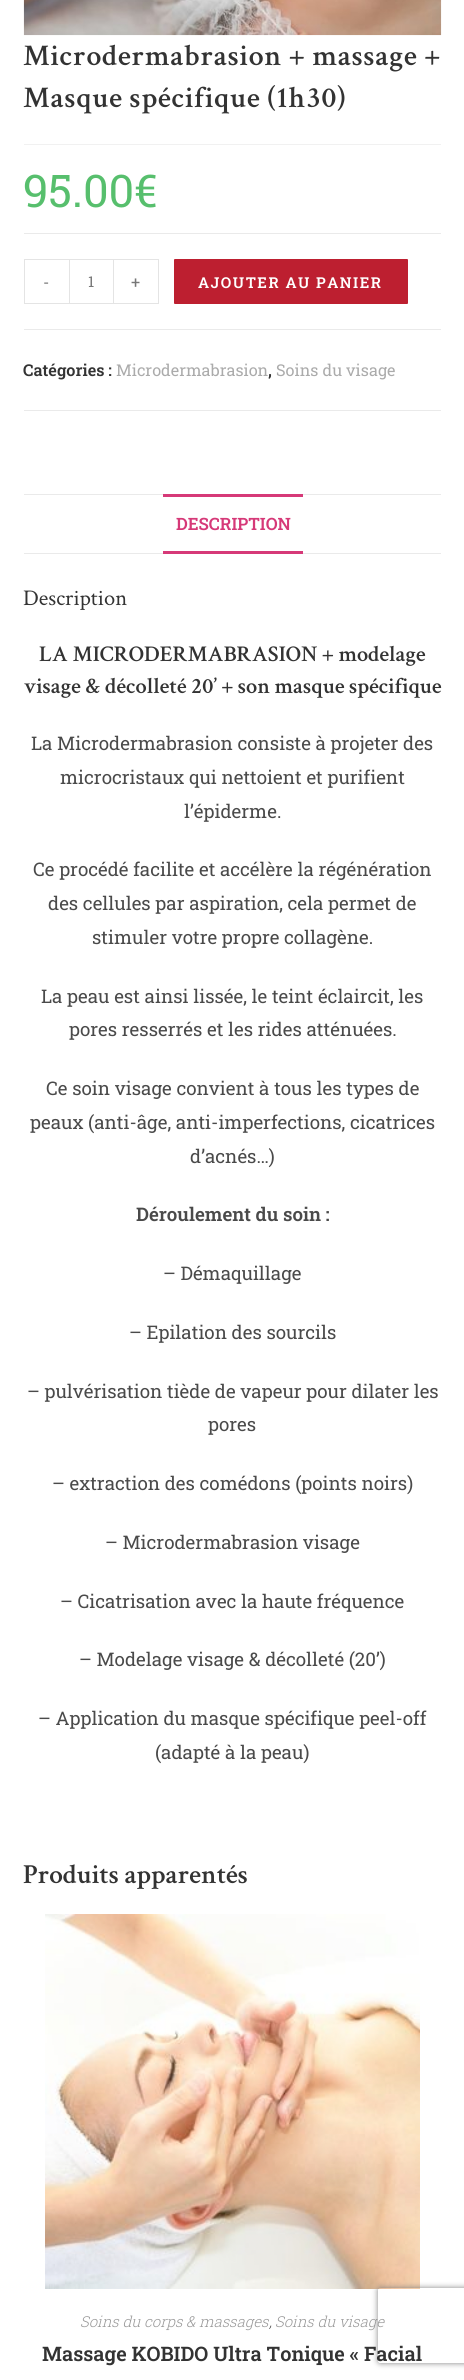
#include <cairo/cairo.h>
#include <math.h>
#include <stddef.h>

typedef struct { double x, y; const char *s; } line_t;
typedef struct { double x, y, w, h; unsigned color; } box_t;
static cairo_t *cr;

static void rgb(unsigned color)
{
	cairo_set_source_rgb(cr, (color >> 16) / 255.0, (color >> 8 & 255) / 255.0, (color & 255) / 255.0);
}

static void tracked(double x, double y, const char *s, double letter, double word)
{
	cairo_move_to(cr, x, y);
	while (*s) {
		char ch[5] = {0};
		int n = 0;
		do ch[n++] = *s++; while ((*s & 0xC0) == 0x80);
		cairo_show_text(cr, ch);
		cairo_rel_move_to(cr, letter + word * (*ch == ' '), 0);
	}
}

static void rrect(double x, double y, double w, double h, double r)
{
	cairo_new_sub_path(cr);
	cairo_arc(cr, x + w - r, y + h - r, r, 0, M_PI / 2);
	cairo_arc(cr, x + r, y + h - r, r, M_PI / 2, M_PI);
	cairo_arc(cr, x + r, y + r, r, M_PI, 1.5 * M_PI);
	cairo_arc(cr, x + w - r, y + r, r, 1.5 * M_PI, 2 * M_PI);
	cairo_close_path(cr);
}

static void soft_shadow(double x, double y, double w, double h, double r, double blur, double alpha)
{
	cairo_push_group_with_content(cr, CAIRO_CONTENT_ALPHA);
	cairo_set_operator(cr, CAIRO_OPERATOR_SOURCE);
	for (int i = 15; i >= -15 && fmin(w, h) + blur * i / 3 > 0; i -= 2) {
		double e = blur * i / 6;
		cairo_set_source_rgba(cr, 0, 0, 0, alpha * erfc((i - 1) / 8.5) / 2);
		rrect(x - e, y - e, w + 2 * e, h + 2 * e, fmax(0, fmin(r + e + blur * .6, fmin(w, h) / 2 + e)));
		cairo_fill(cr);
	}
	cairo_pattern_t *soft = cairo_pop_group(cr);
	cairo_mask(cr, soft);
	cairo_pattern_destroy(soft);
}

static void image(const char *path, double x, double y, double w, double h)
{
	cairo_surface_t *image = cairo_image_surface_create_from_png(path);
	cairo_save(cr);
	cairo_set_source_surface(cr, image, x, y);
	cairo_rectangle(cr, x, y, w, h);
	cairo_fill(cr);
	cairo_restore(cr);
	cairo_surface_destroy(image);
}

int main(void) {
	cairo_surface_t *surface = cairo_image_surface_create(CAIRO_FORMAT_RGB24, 464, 2380);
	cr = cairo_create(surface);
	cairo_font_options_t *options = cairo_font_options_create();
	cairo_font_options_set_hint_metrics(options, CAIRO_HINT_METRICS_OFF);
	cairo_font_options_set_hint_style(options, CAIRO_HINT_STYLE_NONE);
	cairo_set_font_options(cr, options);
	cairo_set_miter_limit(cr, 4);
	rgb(0xffffff);
	cairo_paint(cr);
	image("img/1.png", 23, 0, 419, 36);
	{
		static const box_t items[] = {
			{24, 144, 417, 1, 0xf1f1f1},
			{24, 233, 417, 1, 0xeaeaea},
			{24, 329, 417, 1, 0xeaeaea},
			{24, 259, 45, 1, 0xe4e4e4},
			{24, 303, 45, 1, 0xe4e4e4},
			{24, 259, 1, 45, 0xe4e4e4},
		};
		for (size_t i = 0; i < sizeof items / sizeof *items; i++) {
			rgb(items[i].color);
			cairo_rectangle(cr, items[i].x, items[i].y, items[i].w, items[i].h);
			cairo_fill(cr);
		}
	}
	cairo_rectangle(cr, 69.5, 259.5, 44, 44);
	cairo_set_line_width(cr, 1);
	cairo_stroke(cr);
	{
		static const box_t items[] = {
			{114, 259, 45, 1, 0xe4e4e4},
			{158, 259, 1, 45, 0xe4e4e4},
			{114, 303, 45, 1, 0xe4e4e4},
		};
		for (size_t i = 0; i < sizeof items / sizeof *items; i++) {
			rgb(items[i].color);
			cairo_rectangle(cr, items[i].x, items[i].y, items[i].w, items[i].h);
			cairo_fill(cr);
		}
	}
	rgb(0xbd1f30);
	rrect(174, 259, 234, 45, 1);
	cairo_fill(cr);
	{
		static const box_t items[] = {
			{24, 410, 417, 1, 0xeaeaea},
			{24, 494, 417, 1, 0xeaeaea},
			{24, 553, 417, 1, 0xeaeaea},
			{163, 494, 140, 3, 0xd63978},
			{163, 551, 140, 3, 0xd63978},
		};
		for (size_t i = 0; i < sizeof items / sizeof *items; i++) {
			rgb(items[i].color);
			cairo_rectangle(cr, items[i].x, items[i].y, items[i].w, items[i].h);
			cairo_fill(cr);
		}
	}
	image("img/2.png", 45, 1914, 375, 375);
	cairo_save(cr);
	cairo_set_fill_rule(cr, CAIRO_FILL_RULE_EVEN_ODD);
	cairo_new_path(cr);
	cairo_move_to(cr, 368, 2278);
	cairo_line_to(cr, 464, 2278);
	cairo_line_to(cr, 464, 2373);
	cairo_line_to(cr, 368, 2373);
	cairo_close_path(cr);
	cairo_move_to(cr, 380.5, 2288);
	cairo_line_to(cr, 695.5, 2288);
	cairo_curve_to(cr, 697, 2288, 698, 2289, 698, 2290.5);
	cairo_line_to(cr, 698, 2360.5);
	cairo_curve_to(cr, 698, 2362, 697, 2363, 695.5, 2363);
	cairo_line_to(cr, 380.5, 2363);
	cairo_curve_to(cr, 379, 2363, 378, 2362, 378, 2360.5);
	cairo_line_to(cr, 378, 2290.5);
	cairo_curve_to(cr, 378, 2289, 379, 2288, 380.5, 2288);
	cairo_close_path(cr);
	cairo_clip(cr);
	rgb(0x808080);
	soft_shadow(378, 2288, 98, 75, 2.5, 3, 1);
	cairo_restore(cr);
	cairo_select_font_face(cr, "Crimson Text SemiBold", CAIRO_FONT_SLANT_NORMAL, CAIRO_FONT_WEIGHT_NORMAL);
	cairo_set_font_size(cr, 30);
	rgb(0x333333);
	tracked(23, 65, "Microdermabrasion + massage +", 0.75, 0);
	tracked(23, 107, "Masque spécifique (1h30)", 0.75, 0);
	cairo_select_font_face(cr, "Roboto Slab", CAIRO_FONT_SLANT_NORMAL, CAIRO_FONT_WEIGHT_NORMAL);
	cairo_set_font_size(cr, 45);
	rgb(0x57bf6d);
	cairo_move_to(cr, 23, 207);
	cairo_show_text(cr, "95.00€");
	cairo_set_font_size(cr, 16.25);
	rgb(0x777777);
	cairo_move_to(cr, 43, 288);
	cairo_show_text(cr, "-");
	cairo_set_font_size(cr, 15);
	cairo_move_to(cr, 88, 287);
	cairo_show_text(cr, "1");
	cairo_set_font_size(cr, 16.25);
	cairo_move_to(cr, 131, 288);
	cairo_show_text(cr, "+");
	cairo_select_font_face(cr, "Roboto Slab SemiBold", CAIRO_FONT_SLANT_NORMAL, CAIRO_FONT_WEIGHT_NORMAL);
	cairo_set_font_size(cr, 15);
	rgb(0xffffff);
	tracked(198, 288, "AJOUTER AU PANIER", 1.5, 0);
	cairo_set_font_size(cr, 16.25);
	rgb(0x333333);
	cairo_move_to(cr, 23, 376);
	cairo_show_text(cr, "Catégories :");
	cairo_select_font_face(cr, "Roboto Slab", CAIRO_FONT_SLANT_NORMAL, CAIRO_FONT_WEIGHT_NORMAL);
	rgb(0xababab);
	cairo_move_to(cr, 116, 376);
	cairo_show_text(cr, "Microdermabrasion");
	cairo_select_font_face(cr, "Roboto Slab SemiBold", CAIRO_FONT_SLANT_NORMAL, CAIRO_FONT_WEIGHT_NORMAL);
	rgb(0x333333);
	cairo_move_to(cr, 268, 376);
	cairo_show_text(cr, ",");
	cairo_select_font_face(cr, "Roboto Slab", CAIRO_FONT_SLANT_NORMAL, CAIRO_FONT_WEIGHT_NORMAL);
	rgb(0xababab);
	cairo_move_to(cr, 276, 376);
	cairo_show_text(cr, "Soins du visage");
	cairo_select_font_face(cr, "Roboto Slab SemiBold", CAIRO_FONT_SLANT_NORMAL, CAIRO_FONT_WEIGHT_NORMAL);
	cairo_set_font_size(cr, 17);
	rgb(0xd63978);
	cairo_move_to(cr, 176, 530);
	cairo_show_text(cr, "DESCRIPTION");
	cairo_select_font_face(cr, "Crimson Text", CAIRO_FONT_SLANT_NORMAL, CAIRO_FONT_WEIGHT_NORMAL);
	cairo_set_font_size(cr, 22.5);
	rgb(0x333333);
	cairo_move_to(cr, 23, 605);
	cairo_show_text(cr, "Description");
	cairo_select_font_face(cr, "Crimson Text SemiBold", CAIRO_FONT_SLANT_NORMAL, CAIRO_FONT_WEIGHT_NORMAL);
	cairo_move_to(cr, 39, 661);
	cairo_show_text(cr, "LA MICRODERMABRASION + modelage");
	cairo_move_to(cr, 24, 693);
	cairo_show_text(cr, "visage & décolleté 20’ + son masque spécifique");
	cairo_select_font_face(cr, "Roboto Slab", CAIRO_FONT_SLANT_NORMAL, CAIRO_FONT_WEIGHT_NORMAL);
	cairo_set_font_size(cr, 18.75);
	rgb(0x4a4a4a);
	{
		static const line_t items[] = {
			{31, 750, "La Microdermabrasion consiste à projeter des"},
			{60, 784, "microcristaux qui nettoient et purifient"},
			{184, 818, "l’épiderme."},
			{33, 876, "Ce procédé facilite et accélère la régénération"},
			{48, 910, "des cellules par aspiration, cela permet de"},
			{92, 944, "stimuler votre propre collagène."},
			{41, 1003, "La peau est ainsi lissée, le teint éclaircit, les"},
			{69, 1036, "pores resserrés et les rides atténuées."},
			{46, 1095, "Ce soin visage convient à tous les types de"},
			{30, 1129, "peaux (anti-âge, anti-imperfections, cicatrices"},
			{190, 1163, "d’acnés…)"},
		};
		for (size_t i = 0; i < sizeof items / sizeof *items; i++) {
			cairo_move_to(cr, items[i].x, items[i].y);
			cairo_show_text(cr, items[i].s);
		}
	}
	cairo_select_font_face(cr, "Roboto Slab SemiBold", CAIRO_FONT_SLANT_NORMAL, CAIRO_FONT_WEIGHT_NORMAL);
	cairo_move_to(cr, 136, 1221);
	cairo_show_text(cr, "Déroulement du soin :");
	cairo_select_font_face(cr, "Roboto Slab", CAIRO_FONT_SLANT_NORMAL, CAIRO_FONT_WEIGHT_NORMAL);
	{
		static const line_t items[] = {
			{163, 1280, "– Démaquillage"},
			{129, 1339, "– Epilation des sourcils"},
			{27, 1398, "– pulvérisation tiède de vapeur pour dilater les"},
			{208, 1431, "pores"},
			{52, 1490, "– extraction des comédons (points noirs)"},
			{105, 1549, "– Microdermabrasion visage"},
			{60, 1608, "– Cicatrisation avec la haute fréquence"},
			{79, 1666, "– Modelage visage & décolleté (20’)"},
			{38, 1725, "– Application du masque spécifique peel-off"},
			{155, 1759, "(adapté à la peau)"},
		};
		for (size_t i = 0; i < sizeof items / sizeof *items; i++) {
			cairo_move_to(cr, items[i].x, items[i].y);
			cairo_show_text(cr, items[i].s);
		}
	}
	cairo_select_font_face(cr, "Crimson Text SemiBold", CAIRO_FONT_SLANT_NORMAL, CAIRO_FONT_WEIGHT_NORMAL);
	cairo_set_font_size(cr, 27.5);
	rgb(0x333333);
	cairo_move_to(cr, 23, 1883);
	cairo_show_text(cr, "Produits apparentés");
	cairo_select_font_face(cr, "Roboto Slab Light", CAIRO_FONT_SLANT_ITALIC, CAIRO_FONT_WEIGHT_NORMAL);
	cairo_set_font_size(cr, 15);
	rgb(0x999999);
	cairo_move_to(cr, 80, 2327);
	cairo_show_text(cr, "Soins du corps & massages");
	rgb(0x4a4a4a);
	cairo_move_to(cr, 269, 2327);
	cairo_show_text(cr, ",");
	rgb(0x999999);
	cairo_move_to(cr, 275, 2327);
	cairo_show_text(cr, "Soins du visage");
	cairo_select_font_face(cr, "Roboto Slab SemiBold", CAIRO_FONT_SLANT_NORMAL, CAIRO_FONT_WEIGHT_NORMAL);
	cairo_set_font_size(cr, 20);
	rgb(0x333333);
	cairo_move_to(cr, 42, 2361);
	cairo_show_text(cr, "Massage KOBIDO Ultra Tonique « Facial");
	cairo_surface_write_to_png(surface, "page.png");
	cairo_font_options_destroy(options);
	cairo_destroy(cr);
	cairo_surface_destroy(surface);
	return 0;
}
